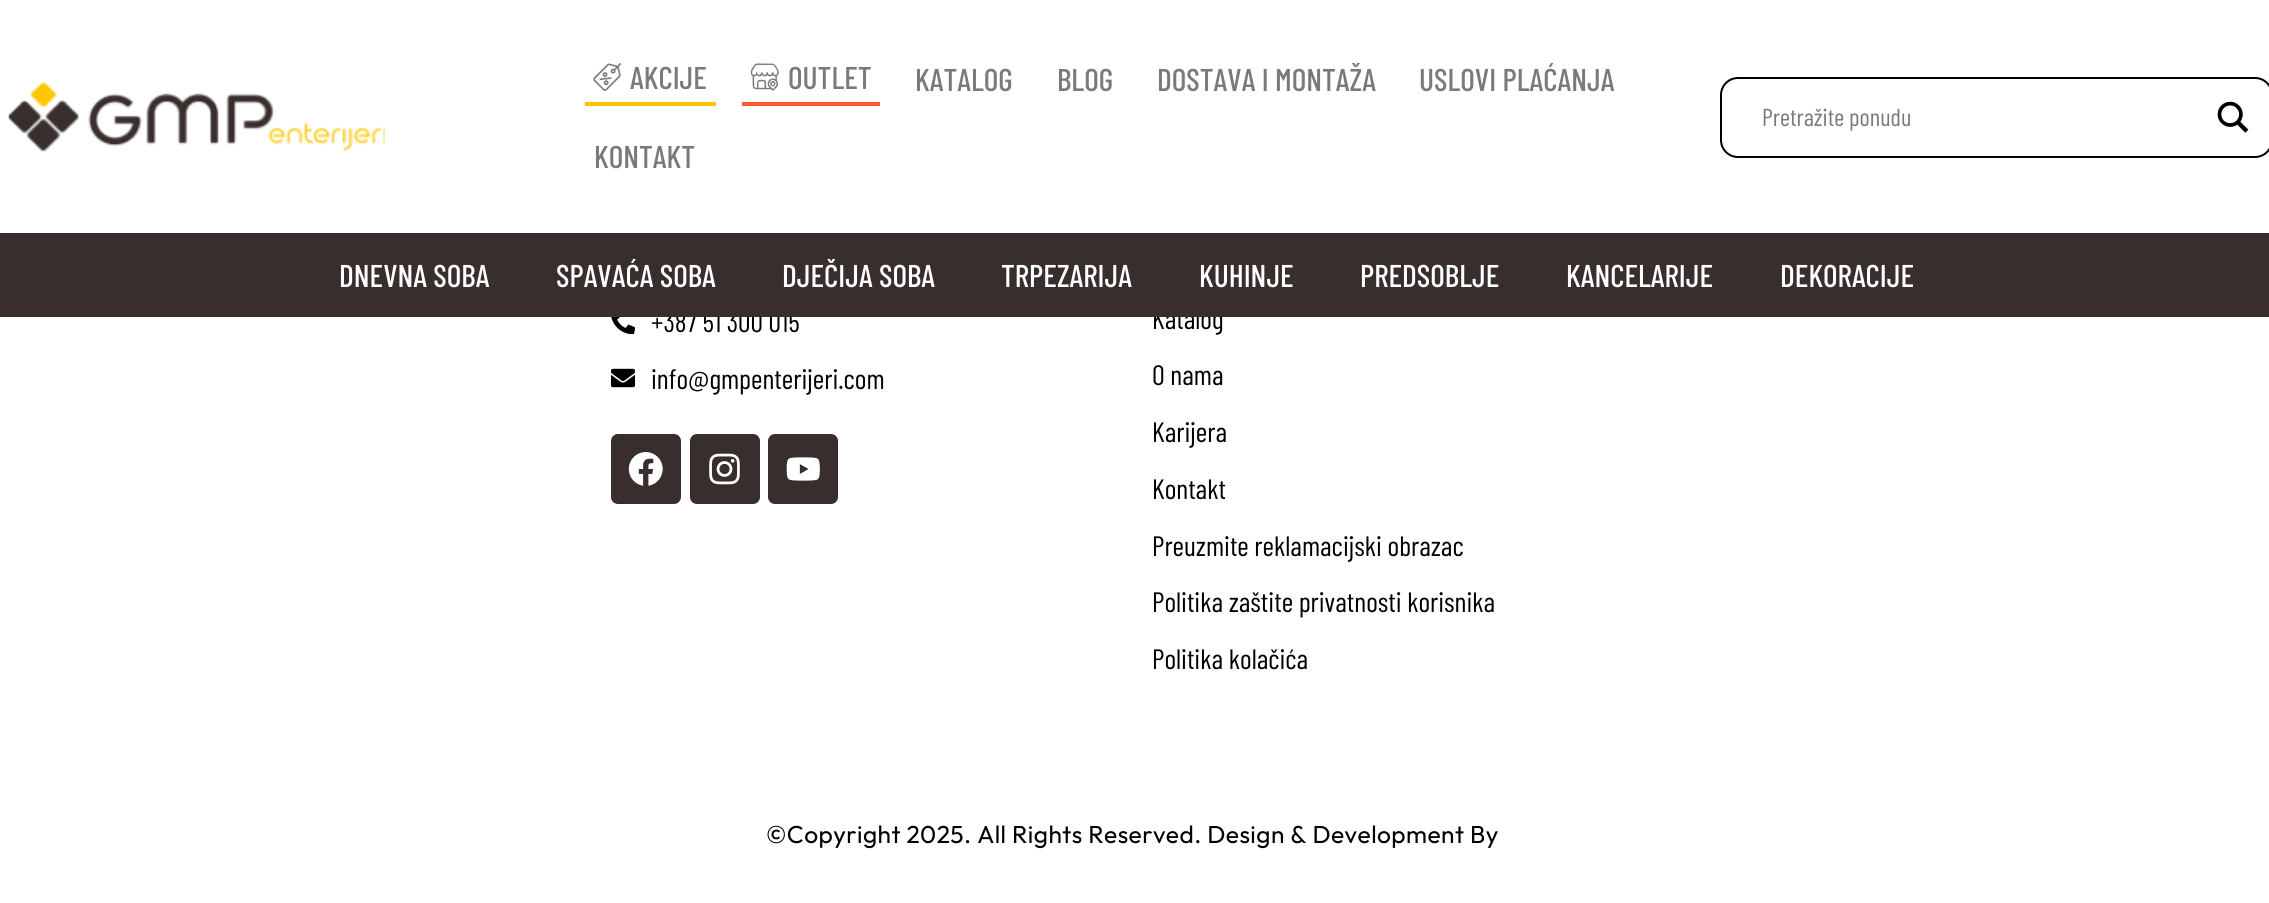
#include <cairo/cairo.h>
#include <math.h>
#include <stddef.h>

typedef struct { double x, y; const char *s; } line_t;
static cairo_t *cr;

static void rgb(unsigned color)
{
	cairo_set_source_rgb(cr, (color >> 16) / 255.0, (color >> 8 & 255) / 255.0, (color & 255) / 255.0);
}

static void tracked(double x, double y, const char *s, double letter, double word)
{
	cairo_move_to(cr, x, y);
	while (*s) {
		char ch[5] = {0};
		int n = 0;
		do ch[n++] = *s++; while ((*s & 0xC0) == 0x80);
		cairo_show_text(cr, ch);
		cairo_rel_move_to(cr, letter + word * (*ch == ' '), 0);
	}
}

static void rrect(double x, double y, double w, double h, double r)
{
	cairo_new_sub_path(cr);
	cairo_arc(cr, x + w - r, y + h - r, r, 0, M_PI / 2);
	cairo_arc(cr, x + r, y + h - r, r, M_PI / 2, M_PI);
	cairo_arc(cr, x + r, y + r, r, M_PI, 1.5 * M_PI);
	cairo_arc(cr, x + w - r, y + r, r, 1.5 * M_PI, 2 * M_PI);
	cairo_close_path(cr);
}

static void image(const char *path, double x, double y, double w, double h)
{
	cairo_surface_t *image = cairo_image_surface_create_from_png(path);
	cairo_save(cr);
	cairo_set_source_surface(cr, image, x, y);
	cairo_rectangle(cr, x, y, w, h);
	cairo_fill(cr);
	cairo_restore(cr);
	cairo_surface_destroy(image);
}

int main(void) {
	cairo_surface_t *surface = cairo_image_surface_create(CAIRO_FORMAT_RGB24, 2269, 903);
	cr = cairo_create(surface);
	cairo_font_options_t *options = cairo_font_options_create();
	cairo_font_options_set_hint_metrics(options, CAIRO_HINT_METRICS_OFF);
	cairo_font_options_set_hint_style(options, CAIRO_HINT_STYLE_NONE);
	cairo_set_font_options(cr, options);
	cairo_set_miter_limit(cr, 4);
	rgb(0xffffff);
	cairo_paint(cr);
	image("img/1.png", 8, 81, 377, 71);
	rgb(0xffc400);
	cairo_rectangle(cr, 585, 102, 131, 4);
	cairo_fill(cr);
	image("img/2.png", 593, 63, 28, 28);
	rgb(0xff5c35);
	cairo_rectangle(cr, 742, 102, 138, 4);
	cairo_fill(cr);
	image("img/3.png", 751, 63, 28, 28);
	rrect(1721, 78, 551, 79, 17);
	rgb(0x000000);
	cairo_stroke(cr);
	image("img/4.png", 2217, 101, 32, 32);
	image("img/5.png", 611, 317, 24, 17);
	image("img/6.png", 611, 368, 24, 20);
	rgb(0x382e2d);
	rrect(611, 434, 70, 70, 7);
	cairo_fill(cr);
	image("img/7.png", 628, 452, 35, 34);
	rrect(690, 434, 70, 70, 7);
	cairo_fill(cr);
	image("img/8.png", 709, 453, 31, 32);
	rrect(768, 434, 70, 70, 7);
	cairo_fill(cr);
	image("img/9.png", 786, 457, 34, 24);
	cairo_select_font_face(cr, "Barlow Condensed Medium", CAIRO_FONT_SLANT_NORMAL, CAIRO_FONT_WEIGHT_NORMAL);
	cairo_set_font_size(cr, 31.5);
	rgb(0x7a7a7a);
	{
		static const line_t items[] = {
			{630, 89, "AKCIJE"},
			{788, 89, "OUTLET"},
			{915, 91, "KATALOG"},
			{1057, 91, "BLOG"},
			{1157, 91, "DOSTAVA I MONTAŽA"},
			{1419, 91, "USLOVI PLAĆANJA"},
			{594, 168, "KONTAKT"},
		};
		for (size_t i = 0; i < sizeof items / sizeof *items; i++) {
			cairo_move_to(cr, items[i].x, items[i].y);
			cairo_show_text(cr, items[i].s);
		}
	}
	cairo_select_font_face(cr, "Barlow Condensed", CAIRO_FONT_SLANT_NORMAL, CAIRO_FONT_WEIGHT_NORMAL);
	cairo_set_font_size(cr, 24.5);
	cairo_move_to(cr, 1762, 126);
	cairo_show_text(cr, "Pretražite ponudu");
	cairo_set_font_size(cr, 28);
	rgb(0x000000);
	{
		static const line_t items[] = {
			{651, 332, "+387 51 300 015"},
			{651, 389, "info@gmpenterijeri.com"},
			{1152, 329, "Katalog"},
		};
		for (size_t i = 0; i < sizeof items / sizeof *items; i++) {
			cairo_move_to(cr, items[i].x, items[i].y);
			cairo_show_text(cr, items[i].s);
		}
	}
	rgb(0x382e2d);
	cairo_rectangle(cr, 0, 233, 2269, 84);
	cairo_fill(cr);
	cairo_select_font_face(cr, "Barlow Condensed Medium", CAIRO_FONT_SLANT_NORMAL, CAIRO_FONT_WEIGHT_NORMAL);
	cairo_set_font_size(cr, 31.5);
	rgb(0xffffff);
	{
		static const line_t items[] = {
			{1780, 287, "DEKORACIJE"},
			{1566, 287, "KANCELARIJE"},
			{1360, 287, "PREDSOBLJE"},
			{1199, 287, "KUHINJE"},
			{1001, 287, "TRPEZARIJA"},
			{782, 287, "DJEČIJA SOBA"},
			{556, 287, "SPAVAĆA SOBA"},
			{339, 287, "DNEVNA SOBA"},
		};
		for (size_t i = 0; i < sizeof items / sizeof *items; i++) {
			cairo_move_to(cr, items[i].x, items[i].y);
			cairo_show_text(cr, items[i].s);
		}
	}
	cairo_select_font_face(cr, "Barlow Condensed", CAIRO_FONT_SLANT_NORMAL, CAIRO_FONT_WEIGHT_NORMAL);
	cairo_set_font_size(cr, 28);
	rgb(0x000000);
	{
		static const line_t items[] = {
			{1152, 385, "O nama"},
			{1152, 442, "Karijera"},
			{1152, 499, "Kontakt"},
			{1152, 556, "Preuzmite reklamacijski obrazac"},
			{1152, 612, "Politika zaštite privatnosti korisnika"},
			{1152, 669, "Politika kolačića"},
		};
		for (size_t i = 0; i < sizeof items / sizeof *items; i++) {
			cairo_move_to(cr, items[i].x, items[i].y);
			cairo_show_text(cr, items[i].s);
		}
	}
	cairo_select_font_face(cr, "Outfit", CAIRO_FONT_SLANT_NORMAL, CAIRO_FONT_WEIGHT_NORMAL);
	cairo_set_font_size(cr, 24.5);
	tracked(766, 843, "©Copyright 2025. All Rights Reserved. Design & Development By", 0.45, 0);
	cairo_surface_write_to_png(surface, "page.png");
	cairo_font_options_destroy(options);
	cairo_destroy(cr);
	cairo_surface_destroy(surface);
	return 0;
}
